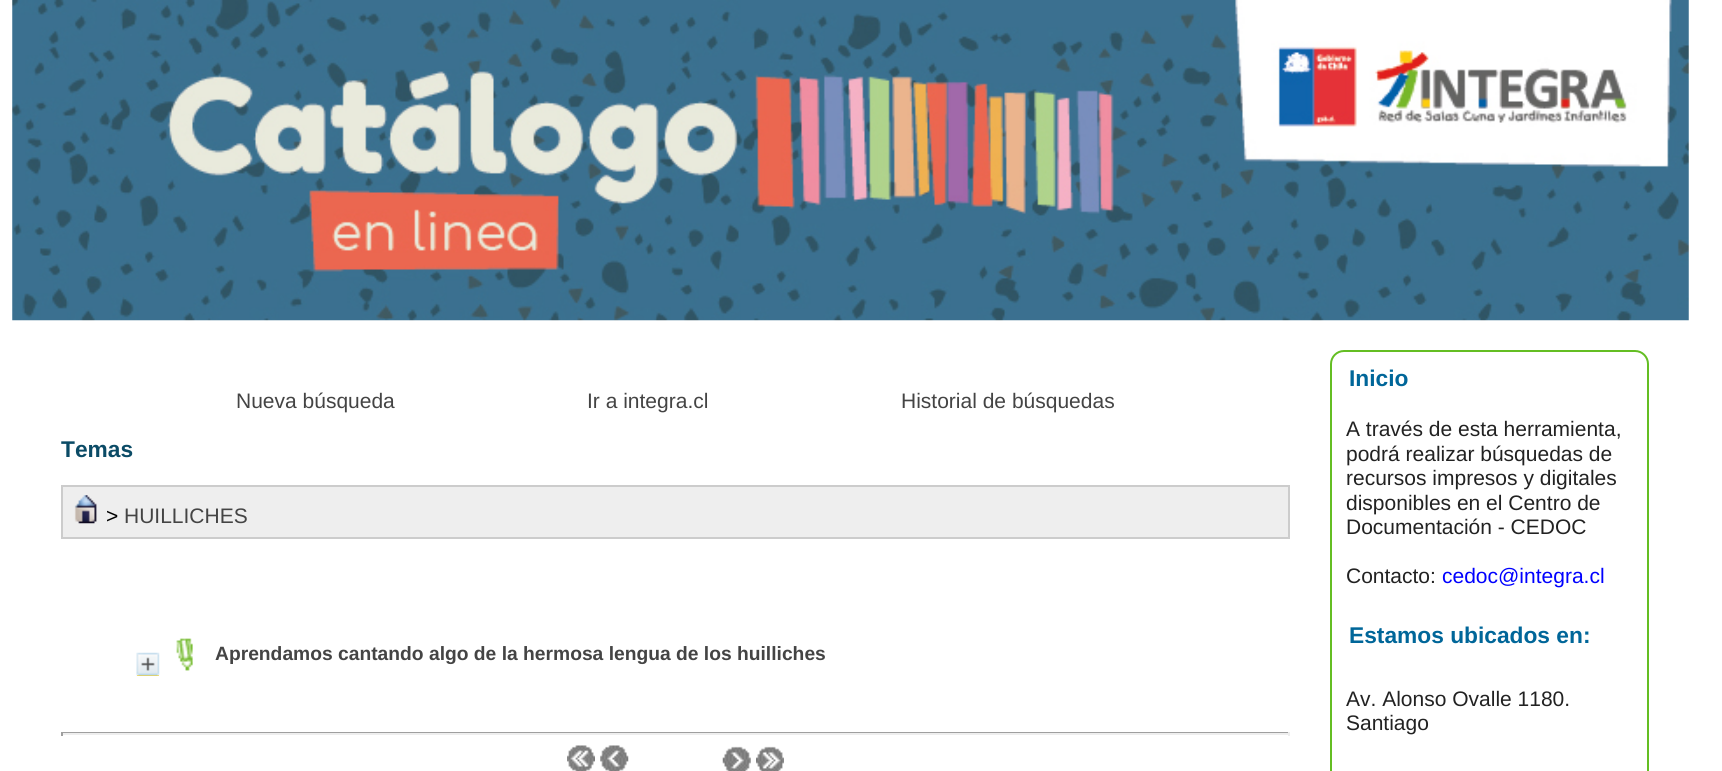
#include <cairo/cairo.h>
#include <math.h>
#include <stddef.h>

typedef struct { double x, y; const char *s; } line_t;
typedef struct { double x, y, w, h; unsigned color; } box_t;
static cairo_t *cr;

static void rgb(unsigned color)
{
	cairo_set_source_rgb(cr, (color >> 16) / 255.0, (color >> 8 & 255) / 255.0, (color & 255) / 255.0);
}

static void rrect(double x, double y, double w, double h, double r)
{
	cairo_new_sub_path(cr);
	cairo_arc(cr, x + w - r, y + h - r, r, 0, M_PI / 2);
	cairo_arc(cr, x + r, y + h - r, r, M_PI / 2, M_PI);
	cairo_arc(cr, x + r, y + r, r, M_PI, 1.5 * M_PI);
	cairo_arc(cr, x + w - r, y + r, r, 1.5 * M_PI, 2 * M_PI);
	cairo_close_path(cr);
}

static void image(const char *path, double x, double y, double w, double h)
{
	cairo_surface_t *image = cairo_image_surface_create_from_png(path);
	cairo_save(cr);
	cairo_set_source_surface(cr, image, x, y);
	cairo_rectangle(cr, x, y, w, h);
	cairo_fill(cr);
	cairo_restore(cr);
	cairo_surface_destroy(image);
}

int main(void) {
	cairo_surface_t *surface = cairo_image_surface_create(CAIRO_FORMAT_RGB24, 1722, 771);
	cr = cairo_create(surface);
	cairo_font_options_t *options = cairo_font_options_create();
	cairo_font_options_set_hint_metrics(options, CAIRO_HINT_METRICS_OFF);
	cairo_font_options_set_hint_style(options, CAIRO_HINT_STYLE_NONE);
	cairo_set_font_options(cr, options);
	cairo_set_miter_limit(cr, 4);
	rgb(0xffffff);
	cairo_paint(cr);
	image("img/1.png", 12, 0, 1677, 321);
	rgb(0xeeeeee);
	cairo_rectangle(cr, 62, 486, 1227, 52);
	cairo_fill_preserve(cr);
	rgb(0xcccccc);
	cairo_stroke(cr);
	image("img/2.png", 74, 495, 23, 29);
	rgb(0xffcc00);
	cairo_rectangle(cr, 137, 675, 22, 1);
	cairo_fill(cr);
	image("img/3.png", 136, 652, 24, 24);
	image("img/4.png", 176, 638, 17, 33);
	{
		static const box_t items[] = {
			{61, 732, 1229, 1, 0x9f9f9f},
			{1288, 732, 2, 4, 0xeeeeee},
			{61, 733, 1229, 2, 0xeeeeee},
			{61, 732, 2, 4, 0x9f9f9f},
		};
		for (size_t i = 0; i < sizeof items / sizeof *items; i++) {
			rgb(items[i].color);
			cairo_rectangle(cr, items[i].x, items[i].y, items[i].w, items[i].h);
			cairo_fill(cr);
		}
	}
	image("img/5.png", 567, 745, 28, 26);
	image("img/6.png", 600, 745, 29, 26);
	image("img/7.png", 722, 746, 29, 25);
	image("img/8.png", 756, 746, 28, 25);
	rrect(1331, 351, 317, 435, 13);
	rgb(0x64be23);
	cairo_stroke(cr);
	cairo_select_font_face(cr, "Liberation Sans", CAIRO_FONT_SLANT_NORMAL, CAIRO_FONT_WEIGHT_NORMAL);
	cairo_set_font_size(cr, 21);
	rgb(0x444444);
	{
		static const line_t items[] = {
			{236, 408, "Nueva búsqueda"},
			{587, 408, "Ir a integra.cl"},
			{901, 408, "Historial de búsquedas"},
		};
		for (size_t i = 0; i < sizeof items / sizeof *items; i++) {
			cairo_move_to(cr, items[i].x, items[i].y);
			cairo_show_text(cr, items[i].s);
		}
	}
	cairo_select_font_face(cr, "Liberation Sans", CAIRO_FONT_SLANT_NORMAL, CAIRO_FONT_WEIGHT_BOLD);
	cairo_set_font_size(cr, 22.75);
	rgb(0x0b4b66);
	cairo_move_to(cr, 61, 457);
	cairo_show_text(cr, "Temas");
	cairo_select_font_face(cr, "Liberation Sans", CAIRO_FONT_SLANT_NORMAL, CAIRO_FONT_WEIGHT_NORMAL);
	cairo_set_font_size(cr, 21);
	rgb(0x000000);
	cairo_move_to(cr, 106, 523);
	cairo_show_text(cr, ">");
	rgb(0x444444);
	cairo_move_to(cr, 124, 523);
	cairo_show_text(cr, "HUILLICHES");
	cairo_select_font_face(cr, "Liberation Sans", CAIRO_FONT_SLANT_NORMAL, CAIRO_FONT_WEIGHT_BOLD);
	cairo_set_font_size(cr, 19.25);
	cairo_move_to(cr, 215, 660);
	cairo_show_text(cr, "Aprendamos cantando algo de la hermosa lengua de los huilliches");
	cairo_set_font_size(cr, 22.75);
	rgb(0x006699);
	cairo_move_to(cr, 1349, 386);
	cairo_show_text(cr, "Inicio");
	cairo_select_font_face(cr, "Liberation Sans", CAIRO_FONT_SLANT_NORMAL, CAIRO_FONT_WEIGHT_NORMAL);
	cairo_set_font_size(cr, 21);
	rgb(0x222222);
	{
		static const line_t items[] = {
			{1346, 436, "A través de esta herramienta,"},
			{1346, 461, "podrá realizar búsquedas de"},
			{1346, 485, "recursos impresos y digitales"},
			{1346, 510, "disponibles en el Centro de"},
			{1346, 534, "Documentación - CEDOC"},
			{1346, 583, "Contacto:"},
		};
		for (size_t i = 0; i < sizeof items / sizeof *items; i++) {
			cairo_move_to(cr, items[i].x, items[i].y);
			cairo_show_text(cr, items[i].s);
		}
	}
	rgb(0x0000ff);
	cairo_move_to(cr, 1442, 583);
	cairo_show_text(cr, "cedoc@integra.cl");
	cairo_select_font_face(cr, "Liberation Sans", CAIRO_FONT_SLANT_NORMAL, CAIRO_FONT_WEIGHT_BOLD);
	cairo_set_font_size(cr, 22.75);
	rgb(0x006699);
	cairo_move_to(cr, 1349, 643);
	cairo_show_text(cr, "Estamos ubicados en:");
	cairo_select_font_face(cr, "Liberation Sans", CAIRO_FONT_SLANT_NORMAL, CAIRO_FONT_WEIGHT_NORMAL);
	cairo_set_font_size(cr, 21);
	rgb(0x222222);
	cairo_move_to(cr, 1346, 706);
	cairo_show_text(cr, "Av. Alonso Ovalle 1180.");
	cairo_move_to(cr, 1346, 730);
	cairo_show_text(cr, "Santiago");
	cairo_surface_write_to_png(surface, "page.png");
	cairo_font_options_destroy(options);
	cairo_destroy(cr);
	cairo_surface_destroy(surface);
	return 0;
}
